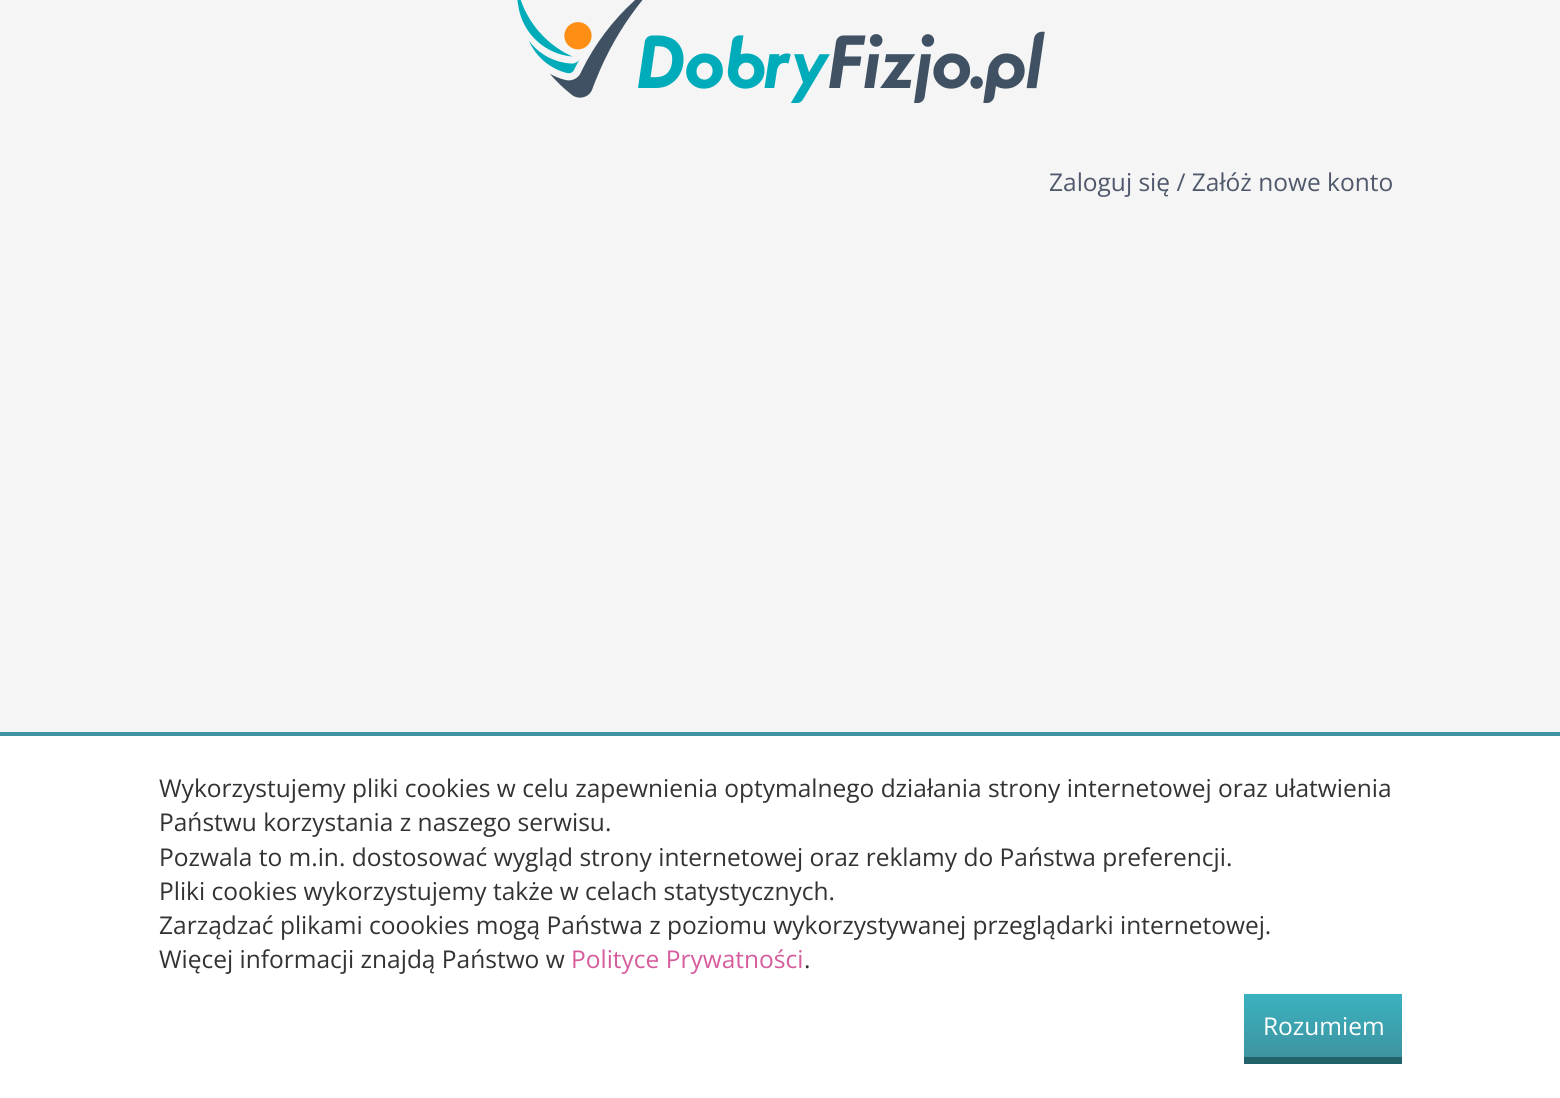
#include <cairo/cairo.h>
#include <math.h>
#include <stddef.h>

typedef struct { double x, y; const char *s; } line_t;
static cairo_t *cr;

static void rgb(unsigned color)
{
	cairo_set_source_rgb(cr, (color >> 16) / 255.0, (color >> 8 & 255) / 255.0, (color & 255) / 255.0);
}

static void image(const char *path, double x, double y, double w, double h)
{
	cairo_surface_t *image = cairo_image_surface_create_from_png(path);
	cairo_save(cr);
	cairo_set_source_surface(cr, image, x, y);
	cairo_rectangle(cr, x, y, w, h);
	cairo_fill(cr);
	cairo_restore(cr);
	cairo_surface_destroy(image);
}

int main(void) {
	cairo_surface_t *surface = cairo_image_surface_create(CAIRO_FORMAT_RGB24, 1560, 1098);
	cr = cairo_create(surface);
	cairo_font_options_t *options = cairo_font_options_create();
	cairo_font_options_set_hint_metrics(options, CAIRO_HINT_METRICS_OFF);
	cairo_font_options_set_hint_style(options, CAIRO_HINT_STYLE_NONE);
	cairo_set_font_options(cr, options);
	cairo_set_miter_limit(cr, 4);
	cairo_pattern_t *gradient;
	rgb(0xf5f5f5);
	cairo_paint(cr);
	image("img/1.png", 517, 0, 528, 103);
	rgb(0xffffff);
	cairo_rectangle(cr, 0, 736, 1560, 362);
	cairo_fill(cr);
	rgb(0x3d94a0);
	cairo_rectangle(cr, 0, 732, 1560, 4);
	cairo_fill(cr);
	gradient = cairo_pattern_create_linear(1323, 994, 1323, 1057);
	cairo_pattern_add_color_stop_rgba(gradient, 0, 0.231, 0.698, 0.753, 1);
	cairo_pattern_add_color_stop_rgba(gradient, 1, 0.239, 0.58, 0.627, 1);
	cairo_set_source(cr, gradient);
	cairo_pattern_destroy(gradient);
	cairo_rectangle(cr, 1244, 994, 158, 63);
	cairo_fill(cr);
	rgb(0x22626a);
	cairo_rectangle(cr, 1244, 1057, 158, 7);
	cairo_fill(cr);
	cairo_select_font_face(cr, "Open Sans", CAIRO_FONT_SLANT_NORMAL, CAIRO_FONT_WEIGHT_NORMAL);
	cairo_set_font_size(cr, 24.5);
	rgb(0x50596c);
	cairo_move_to(cr, 1049, 191);
	cairo_show_text(cr, "Zaloguj się / Załóż nowe konto");
	rgb(0x333333);
	{
		static const line_t items[] = {
			{159, 797, "Wykorzystujemy pliki cookies w celu zapewnienia optymalnego działania strony internetowej oraz ułatwienia"},
			{159, 831, "Państwu korzystania z naszego serwisu."},
			{159, 866, "Pozwala to m.in. dostosować wygląd strony internetowej oraz reklamy do Państwa preferencji."},
			{159, 900, "Pliki cookies wykorzystujemy także w celach statystycznych."},
			{159, 934, "Zarządzać plikami coookies mogą Państwa z poziomu wykorzystywanej przeglądarki internetowej."},
			{159, 968, "Więcej informacji znajdą Państwo w"},
		};
		for (size_t i = 0; i < sizeof items / sizeof *items; i++) {
			cairo_move_to(cr, items[i].x, items[i].y);
			cairo_show_text(cr, items[i].s);
		}
	}
	rgb(0xd65d9c);
	cairo_move_to(cr, 571, 968);
	cairo_show_text(cr, "Polityce Prywatności");
	rgb(0x333333);
	cairo_move_to(cr, 804, 968);
	cairo_show_text(cr, ".");
	rgb(0xffffff);
	cairo_move_to(cr, 1263, 1035);
	cairo_show_text(cr, "Rozumiem");
	cairo_surface_write_to_png(surface, "page.png");
	cairo_font_options_destroy(options);
	cairo_destroy(cr);
	cairo_surface_destroy(surface);
	return 0;
}
